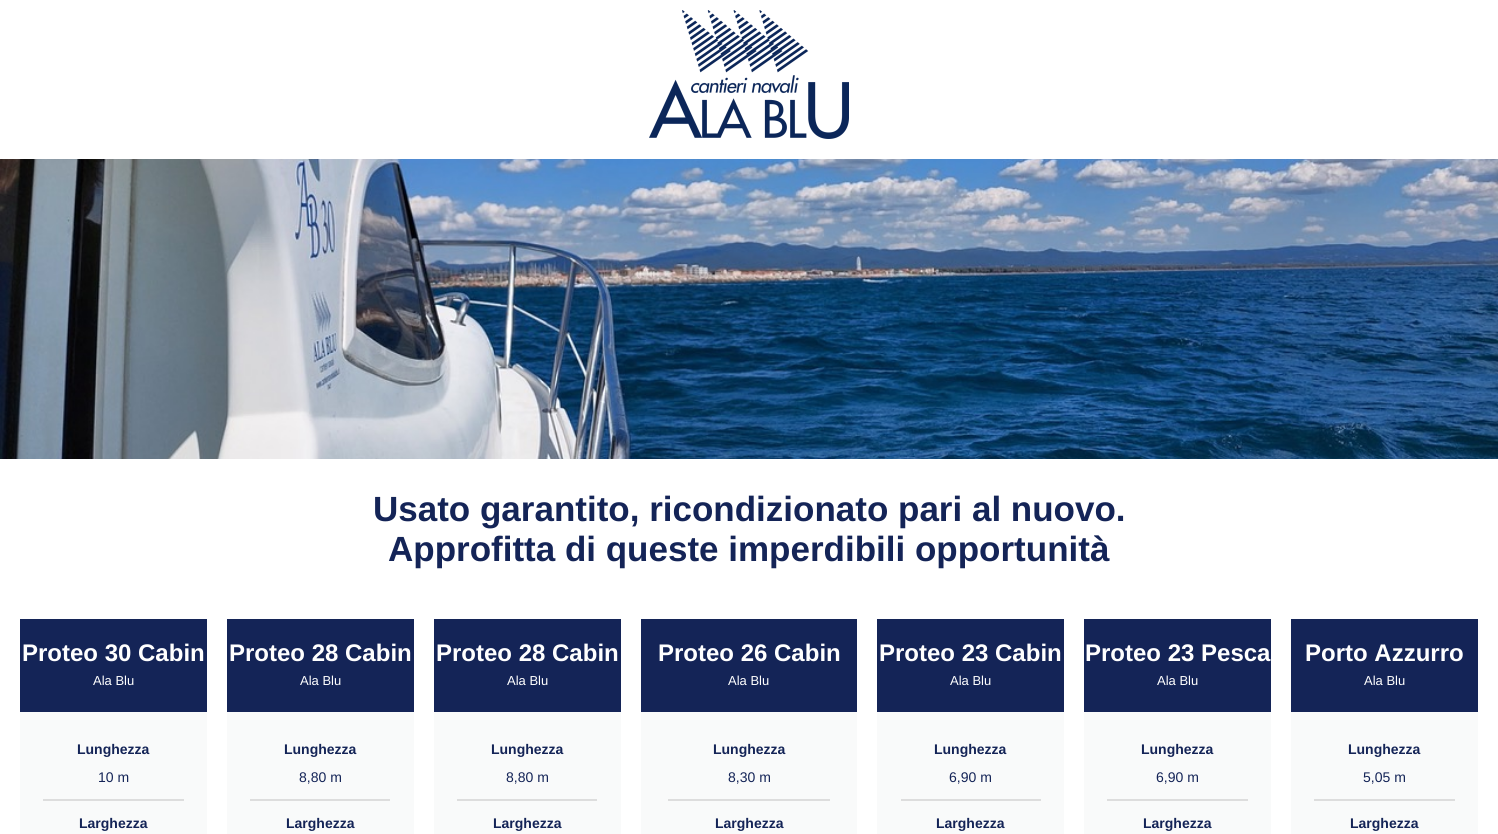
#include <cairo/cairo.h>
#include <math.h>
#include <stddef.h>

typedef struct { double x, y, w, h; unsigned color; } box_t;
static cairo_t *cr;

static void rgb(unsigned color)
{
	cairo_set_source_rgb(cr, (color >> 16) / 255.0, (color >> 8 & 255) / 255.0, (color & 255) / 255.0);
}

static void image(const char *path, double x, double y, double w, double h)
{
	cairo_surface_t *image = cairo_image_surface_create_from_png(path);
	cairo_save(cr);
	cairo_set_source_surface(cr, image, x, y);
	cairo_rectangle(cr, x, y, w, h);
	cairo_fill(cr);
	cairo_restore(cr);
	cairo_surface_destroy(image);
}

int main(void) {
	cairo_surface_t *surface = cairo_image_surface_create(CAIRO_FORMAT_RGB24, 1498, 834);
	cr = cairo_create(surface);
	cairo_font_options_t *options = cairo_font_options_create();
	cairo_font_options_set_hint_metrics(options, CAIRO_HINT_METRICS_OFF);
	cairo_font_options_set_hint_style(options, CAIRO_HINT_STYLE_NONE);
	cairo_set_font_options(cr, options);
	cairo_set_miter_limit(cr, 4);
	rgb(0xffffff);
	cairo_paint(cr);
	image("img/1.png", 649, 10, 200, 129);
	image("img/2.png", 0, 159, 1498, 300);
	{
		static const box_t items[] = {
			{20, 712, 187, 122, 0xf9fafa},
			{20, 619, 187, 93, 0x142457},
			{43, 799, 141, 2, 0xdddddd},
			{227, 712, 187, 122, 0xf9fafa},
			{227, 619, 187, 93, 0x142457},
			{250, 799, 140, 2, 0xdddddd},
			{434, 712, 187, 122, 0xf9fafa},
			{434, 619, 187, 93, 0x142457},
			{457, 799, 140, 2, 0xdddddd},
			{641, 712, 216, 122, 0xf9fafa},
			{641, 619, 216, 93, 0x142457},
			{668, 799, 162, 2, 0xdddddd},
			{877, 712, 187, 122, 0xf9fafa},
			{877, 619, 187, 93, 0x142457},
			{901, 799, 140, 2, 0xdddddd},
			{1084, 712, 187, 122, 0xf9fafa},
			{1084, 619, 187, 93, 0x142457},
			{1107, 799, 141, 2, 0xdddddd},
			{1291, 712, 187, 122, 0xf9fafa},
			{1291, 619, 187, 93, 0x142457},
			{1314, 799, 141, 2, 0xdddddd},
		};
		for (size_t i = 0; i < sizeof items / sizeof *items; i++) {
			rgb(items[i].color);
			cairo_rectangle(cr, items[i].x, items[i].y, items[i].w, items[i].h);
			cairo_fill(cr);
		}
	}
	cairo_select_font_face(cr, "Liberation Sans", CAIRO_FONT_SLANT_NORMAL, CAIRO_FONT_WEIGHT_BOLD);
	cairo_set_font_size(cr, 35);
	rgb(0x142457);
	cairo_move_to(cr, 373, 521);
	cairo_show_text(cr, "Usato garantito, ricondizionato pari al nuovo.");
	cairo_move_to(cr, 388, 561);
	cairo_show_text(cr, "Approfitta di queste imperdibili opportunità");
	cairo_set_font_size(cr, 24);
	rgb(0xffffff);
	cairo_move_to(cr, 22, 661);
	cairo_show_text(cr, "Proteo 30 Cabin");
	cairo_select_font_face(cr, "Liberation Sans", CAIRO_FONT_SLANT_NORMAL, CAIRO_FONT_WEIGHT_NORMAL);
	cairo_set_font_size(cr, 13);
	cairo_move_to(cr, 93, 685);
	cairo_show_text(cr, "Ala Blu");
	cairo_select_font_face(cr, "Liberation Sans", CAIRO_FONT_SLANT_NORMAL, CAIRO_FONT_WEIGHT_BOLD);
	cairo_set_font_size(cr, 14);
	rgb(0x142457);
	cairo_move_to(cr, 77, 754);
	cairo_show_text(cr, "Lunghezza");
	cairo_select_font_face(cr, "Liberation Sans", CAIRO_FONT_SLANT_NORMAL, CAIRO_FONT_WEIGHT_NORMAL);
	cairo_move_to(cr, 98, 782);
	cairo_show_text(cr, "10 m");
	cairo_select_font_face(cr, "Liberation Sans", CAIRO_FONT_SLANT_NORMAL, CAIRO_FONT_WEIGHT_BOLD);
	cairo_move_to(cr, 79, 828);
	cairo_show_text(cr, "Larghezza");
	cairo_set_font_size(cr, 24);
	rgb(0xffffff);
	cairo_move_to(cr, 229, 661);
	cairo_show_text(cr, "Proteo 28 Cabin");
	cairo_select_font_face(cr, "Liberation Sans", CAIRO_FONT_SLANT_NORMAL, CAIRO_FONT_WEIGHT_NORMAL);
	cairo_set_font_size(cr, 13);
	cairo_move_to(cr, 300, 685);
	cairo_show_text(cr, "Ala Blu");
	cairo_select_font_face(cr, "Liberation Sans", CAIRO_FONT_SLANT_NORMAL, CAIRO_FONT_WEIGHT_BOLD);
	cairo_set_font_size(cr, 14);
	rgb(0x142457);
	cairo_move_to(cr, 284, 754);
	cairo_show_text(cr, "Lunghezza");
	cairo_select_font_face(cr, "Liberation Sans", CAIRO_FONT_SLANT_NORMAL, CAIRO_FONT_WEIGHT_NORMAL);
	cairo_move_to(cr, 299, 782);
	cairo_show_text(cr, "8,80 m");
	cairo_select_font_face(cr, "Liberation Sans", CAIRO_FONT_SLANT_NORMAL, CAIRO_FONT_WEIGHT_BOLD);
	cairo_move_to(cr, 286, 828);
	cairo_show_text(cr, "Larghezza");
	cairo_set_font_size(cr, 24);
	rgb(0xffffff);
	cairo_move_to(cr, 436, 661);
	cairo_show_text(cr, "Proteo 28 Cabin");
	cairo_select_font_face(cr, "Liberation Sans", CAIRO_FONT_SLANT_NORMAL, CAIRO_FONT_WEIGHT_NORMAL);
	cairo_set_font_size(cr, 13);
	cairo_move_to(cr, 507, 685);
	cairo_show_text(cr, "Ala Blu");
	cairo_select_font_face(cr, "Liberation Sans", CAIRO_FONT_SLANT_NORMAL, CAIRO_FONT_WEIGHT_BOLD);
	cairo_set_font_size(cr, 14);
	rgb(0x142457);
	cairo_move_to(cr, 491, 754);
	cairo_show_text(cr, "Lunghezza");
	cairo_select_font_face(cr, "Liberation Sans", CAIRO_FONT_SLANT_NORMAL, CAIRO_FONT_WEIGHT_NORMAL);
	cairo_move_to(cr, 506, 782);
	cairo_show_text(cr, "8,80 m");
	cairo_select_font_face(cr, "Liberation Sans", CAIRO_FONT_SLANT_NORMAL, CAIRO_FONT_WEIGHT_BOLD);
	cairo_move_to(cr, 493, 828);
	cairo_show_text(cr, "Larghezza");
	cairo_set_font_size(cr, 24);
	rgb(0xffffff);
	cairo_move_to(cr, 658, 661);
	cairo_show_text(cr, "Proteo 26 Cabin");
	cairo_select_font_face(cr, "Liberation Sans", CAIRO_FONT_SLANT_NORMAL, CAIRO_FONT_WEIGHT_NORMAL);
	cairo_set_font_size(cr, 13);
	cairo_move_to(cr, 728, 685);
	cairo_show_text(cr, "Ala Blu");
	cairo_select_font_face(cr, "Liberation Sans", CAIRO_FONT_SLANT_NORMAL, CAIRO_FONT_WEIGHT_BOLD);
	cairo_set_font_size(cr, 14);
	rgb(0x142457);
	cairo_move_to(cr, 713, 754);
	cairo_show_text(cr, "Lunghezza");
	cairo_select_font_face(cr, "Liberation Sans", CAIRO_FONT_SLANT_NORMAL, CAIRO_FONT_WEIGHT_NORMAL);
	cairo_move_to(cr, 728, 782);
	cairo_show_text(cr, "8,30 m");
	cairo_select_font_face(cr, "Liberation Sans", CAIRO_FONT_SLANT_NORMAL, CAIRO_FONT_WEIGHT_BOLD);
	cairo_move_to(cr, 715, 828);
	cairo_show_text(cr, "Larghezza");
	cairo_set_font_size(cr, 24);
	rgb(0xffffff);
	cairo_move_to(cr, 879, 661);
	cairo_show_text(cr, "Proteo 23 Cabin");
	cairo_select_font_face(cr, "Liberation Sans", CAIRO_FONT_SLANT_NORMAL, CAIRO_FONT_WEIGHT_NORMAL);
	cairo_set_font_size(cr, 13);
	cairo_move_to(cr, 950, 685);
	cairo_show_text(cr, "Ala Blu");
	cairo_select_font_face(cr, "Liberation Sans", CAIRO_FONT_SLANT_NORMAL, CAIRO_FONT_WEIGHT_BOLD);
	cairo_set_font_size(cr, 14);
	rgb(0x142457);
	cairo_move_to(cr, 934, 754);
	cairo_show_text(cr, "Lunghezza");
	cairo_select_font_face(cr, "Liberation Sans", CAIRO_FONT_SLANT_NORMAL, CAIRO_FONT_WEIGHT_NORMAL);
	cairo_move_to(cr, 949, 782);
	cairo_show_text(cr, "6,90 m");
	cairo_select_font_face(cr, "Liberation Sans", CAIRO_FONT_SLANT_NORMAL, CAIRO_FONT_WEIGHT_BOLD);
	cairo_move_to(cr, 936, 828);
	cairo_show_text(cr, "Larghezza");
	cairo_set_font_size(cr, 24);
	rgb(0xffffff);
	cairo_move_to(cr, 1085, 661);
	cairo_show_text(cr, "Proteo 23 Pesca");
	cairo_select_font_face(cr, "Liberation Sans", CAIRO_FONT_SLANT_NORMAL, CAIRO_FONT_WEIGHT_NORMAL);
	cairo_set_font_size(cr, 13);
	cairo_move_to(cr, 1157, 685);
	cairo_show_text(cr, "Ala Blu");
	cairo_select_font_face(cr, "Liberation Sans", CAIRO_FONT_SLANT_NORMAL, CAIRO_FONT_WEIGHT_BOLD);
	cairo_set_font_size(cr, 14);
	rgb(0x142457);
	cairo_move_to(cr, 1141, 754);
	cairo_show_text(cr, "Lunghezza");
	cairo_select_font_face(cr, "Liberation Sans", CAIRO_FONT_SLANT_NORMAL, CAIRO_FONT_WEIGHT_NORMAL);
	cairo_move_to(cr, 1156, 782);
	cairo_show_text(cr, "6,90 m");
	cairo_select_font_face(cr, "Liberation Sans", CAIRO_FONT_SLANT_NORMAL, CAIRO_FONT_WEIGHT_BOLD);
	cairo_move_to(cr, 1143, 828);
	cairo_show_text(cr, "Larghezza");
	cairo_set_font_size(cr, 24);
	rgb(0xffffff);
	cairo_move_to(cr, 1305, 661);
	cairo_show_text(cr, "Porto Azzurro");
	cairo_select_font_face(cr, "Liberation Sans", CAIRO_FONT_SLANT_NORMAL, CAIRO_FONT_WEIGHT_NORMAL);
	cairo_set_font_size(cr, 13);
	cairo_move_to(cr, 1364, 685);
	cairo_show_text(cr, "Ala Blu");
	cairo_select_font_face(cr, "Liberation Sans", CAIRO_FONT_SLANT_NORMAL, CAIRO_FONT_WEIGHT_BOLD);
	cairo_set_font_size(cr, 14);
	rgb(0x142457);
	cairo_move_to(cr, 1348, 754);
	cairo_show_text(cr, "Lunghezza");
	cairo_select_font_face(cr, "Liberation Sans", CAIRO_FONT_SLANT_NORMAL, CAIRO_FONT_WEIGHT_NORMAL);
	cairo_move_to(cr, 1363, 782);
	cairo_show_text(cr, "5,05 m");
	cairo_select_font_face(cr, "Liberation Sans", CAIRO_FONT_SLANT_NORMAL, CAIRO_FONT_WEIGHT_BOLD);
	cairo_move_to(cr, 1350, 828);
	cairo_show_text(cr, "Larghezza");
	cairo_surface_write_to_png(surface, "page.png");
	cairo_font_options_destroy(options);
	cairo_destroy(cr);
	cairo_surface_destroy(surface);
	return 0;
}
